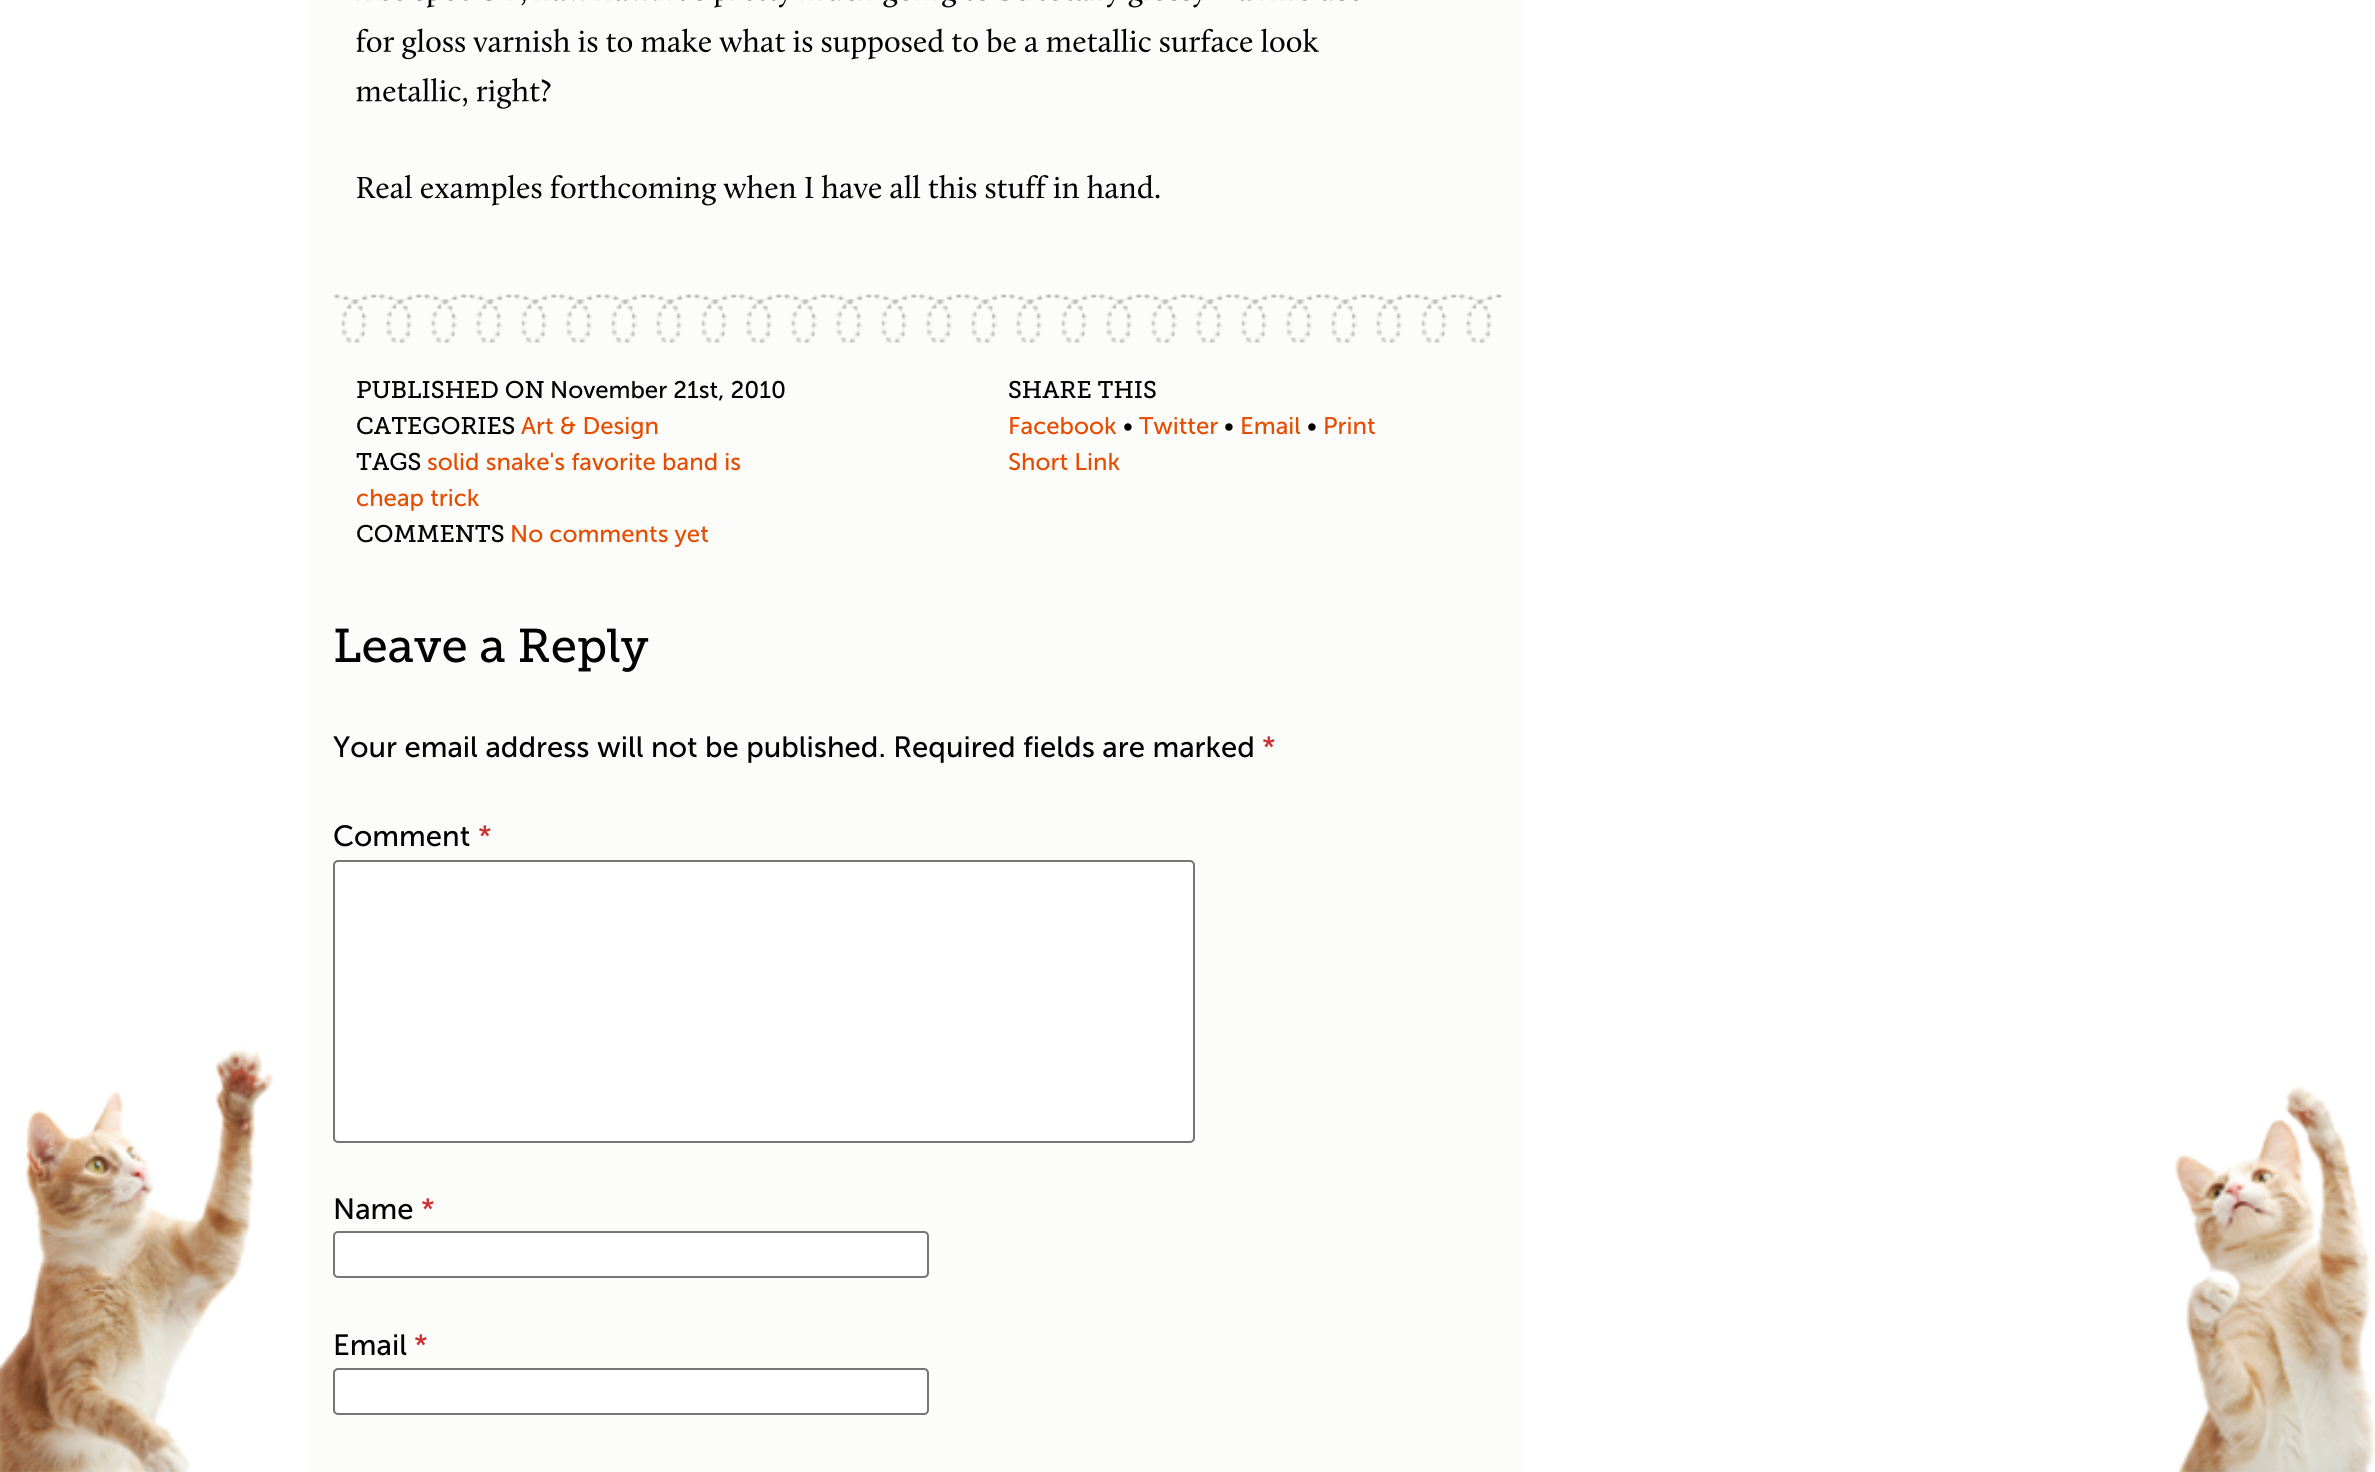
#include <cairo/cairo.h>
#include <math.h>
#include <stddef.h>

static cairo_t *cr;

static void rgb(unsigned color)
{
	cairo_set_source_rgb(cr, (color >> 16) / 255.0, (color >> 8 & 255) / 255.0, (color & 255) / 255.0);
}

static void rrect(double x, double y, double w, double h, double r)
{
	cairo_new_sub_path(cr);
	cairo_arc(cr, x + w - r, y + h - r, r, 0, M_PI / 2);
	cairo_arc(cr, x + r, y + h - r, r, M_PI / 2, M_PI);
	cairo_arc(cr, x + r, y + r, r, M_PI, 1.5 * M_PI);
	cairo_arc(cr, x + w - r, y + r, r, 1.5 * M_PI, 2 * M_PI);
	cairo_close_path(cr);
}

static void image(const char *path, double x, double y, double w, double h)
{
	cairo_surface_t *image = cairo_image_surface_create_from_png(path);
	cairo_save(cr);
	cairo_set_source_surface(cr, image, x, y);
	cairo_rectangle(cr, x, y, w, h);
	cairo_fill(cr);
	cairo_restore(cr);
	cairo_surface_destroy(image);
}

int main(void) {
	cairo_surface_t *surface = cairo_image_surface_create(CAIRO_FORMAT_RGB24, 2375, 1472);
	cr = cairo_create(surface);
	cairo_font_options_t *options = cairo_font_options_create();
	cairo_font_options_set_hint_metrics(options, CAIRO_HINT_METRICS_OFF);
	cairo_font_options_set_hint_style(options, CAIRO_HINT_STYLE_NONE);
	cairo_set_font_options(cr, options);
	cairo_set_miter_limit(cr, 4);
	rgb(0xffffff);
	cairo_paint(cr);
	image("img/1.png", 0, 1046, 273, 426);
	rgb(0xfcfcfa);
	cairo_rectangle(cr, 311, 0, 1215, 1472);
	cairo_fill(cr);
	image("img/2.png", 356, 0, 1002, 8);
	image("img/3.png", 356, 28, 963, 32);
	image("img/4.png", 356, 78, 195, 31);
	image("img/5.png", 356, 174, 804, 32);
	image("img/6.png", 333, 294, 1170, 49);
	rgb(0xffffff);
	rrect(334, 861, 860, 281, 4);
	cairo_fill_preserve(cr);
	rgb(0x767676);
	cairo_stroke(cr);
	rgb(0xffffff);
	rrect(334, 1232, 594, 45, 4);
	cairo_fill_preserve(cr);
	rgb(0x767676);
	cairo_stroke(cr);
	rgb(0xffffff);
	rrect(334, 1369, 594, 45, 4);
	cairo_fill_preserve(cr);
	rgb(0x767676);
	cairo_stroke(cr);
	image("img/7.png", 2175, 1085, 200, 387);
	cairo_select_font_face(cr, "Museo Slab", CAIRO_FONT_SLANT_NORMAL, CAIRO_FONT_WEIGHT_NORMAL);
	cairo_set_font_size(cr, 24);
	rgb(0x000000);
	cairo_move_to(cr, 356, 398);
	cairo_show_text(cr, "PUBLISHED ON");
	cairo_select_font_face(cr, "Museo Sans", CAIRO_FONT_SLANT_NORMAL, CAIRO_FONT_WEIGHT_NORMAL);
	cairo_move_to(cr, 550, 398);
	cairo_show_text(cr, "November 21st, 2010");
	cairo_select_font_face(cr, "Museo Slab", CAIRO_FONT_SLANT_NORMAL, CAIRO_FONT_WEIGHT_NORMAL);
	cairo_move_to(cr, 356, 434);
	cairo_show_text(cr, "CATEGORIES");
	cairo_select_font_face(cr, "Museo Sans", CAIRO_FONT_SLANT_NORMAL, CAIRO_FONT_WEIGHT_NORMAL);
	rgb(0xe64c00);
	cairo_move_to(cr, 521, 434);
	cairo_show_text(cr, "Art & Design");
	cairo_select_font_face(cr, "Museo Slab", CAIRO_FONT_SLANT_NORMAL, CAIRO_FONT_WEIGHT_NORMAL);
	rgb(0x000000);
	cairo_move_to(cr, 356, 470);
	cairo_show_text(cr, "TAGS");
	cairo_select_font_face(cr, "Museo Sans", CAIRO_FONT_SLANT_NORMAL, CAIRO_FONT_WEIGHT_NORMAL);
	rgb(0xe64c00);
	cairo_move_to(cr, 427, 470);
	cairo_show_text(cr, "solid snake's favorite band is");
	cairo_move_to(cr, 356, 506);
	cairo_show_text(cr, "cheap trick");
	cairo_select_font_face(cr, "Museo Slab", CAIRO_FONT_SLANT_NORMAL, CAIRO_FONT_WEIGHT_NORMAL);
	rgb(0x000000);
	cairo_move_to(cr, 356, 542);
	cairo_show_text(cr, "COMMENTS");
	cairo_select_font_face(cr, "Museo Sans", CAIRO_FONT_SLANT_NORMAL, CAIRO_FONT_WEIGHT_NORMAL);
	rgb(0xe64c00);
	cairo_move_to(cr, 510, 542);
	cairo_show_text(cr, "No comments yet");
	cairo_select_font_face(cr, "Museo Slab", CAIRO_FONT_SLANT_NORMAL, CAIRO_FONT_WEIGHT_NORMAL);
	rgb(0x000000);
	cairo_move_to(cr, 1008, 398);
	cairo_show_text(cr, "SHARE THIS");
	cairo_select_font_face(cr, "Museo Sans", CAIRO_FONT_SLANT_NORMAL, CAIRO_FONT_WEIGHT_NORMAL);
	rgb(0xe64c00);
	cairo_move_to(cr, 1008, 434);
	cairo_show_text(cr, "Facebook");
	rgb(0x000000);
	cairo_move_to(cr, 1123, 434);
	cairo_show_text(cr, "•");
	rgb(0xe64c00);
	cairo_move_to(cr, 1139, 434);
	cairo_show_text(cr, "Twitter");
	rgb(0x000000);
	cairo_move_to(cr, 1224, 434);
	cairo_show_text(cr, "•");
	rgb(0xe64c00);
	cairo_move_to(cr, 1240, 434);
	cairo_show_text(cr, "Email");
	rgb(0x000000);
	cairo_move_to(cr, 1307, 434);
	cairo_show_text(cr, "•");
	rgb(0xe64c00);
	cairo_move_to(cr, 1323, 434);
	cairo_show_text(cr, "Print");
	cairo_move_to(cr, 1008, 470);
	cairo_show_text(cr, "Short Link");
	cairo_select_font_face(cr, "Museo Slab", CAIRO_FONT_SLANT_NORMAL, CAIRO_FONT_WEIGHT_NORMAL);
	cairo_set_font_size(cr, 47.25);
	rgb(0x000000);
	cairo_move_to(cr, 333, 662);
	cairo_show_text(cr, "Leave a Reply");
	cairo_select_font_face(cr, "Museo Sans", CAIRO_FONT_SLANT_NORMAL, CAIRO_FONT_WEIGHT_NORMAL);
	cairo_set_font_size(cr, 29.25);
	cairo_move_to(cr, 333, 757);
	cairo_show_text(cr, "Your email address will not be published. Required fields are marked");
	rgb(0xcc3333);
	cairo_move_to(cr, 1262, 757);
	cairo_show_text(cr, "*");
	rgb(0x000000);
	cairo_move_to(cr, 333, 846);
	cairo_show_text(cr, "Comment");
	rgb(0xcc3333);
	cairo_move_to(cr, 478, 846);
	cairo_show_text(cr, "*");
	rgb(0x000000);
	cairo_move_to(cr, 333, 1219);
	cairo_show_text(cr, "Name");
	rgb(0xcc3333);
	cairo_move_to(cr, 421, 1219);
	cairo_show_text(cr, "*");
	rgb(0x000000);
	cairo_move_to(cr, 333, 1355);
	cairo_show_text(cr, "Email");
	rgb(0xcc3333);
	cairo_move_to(cr, 414, 1355);
	cairo_show_text(cr, "*");
	cairo_surface_write_to_png(surface, "page.png");
	cairo_font_options_destroy(options);
	cairo_destroy(cr);
	cairo_surface_destroy(surface);
	return 0;
}
